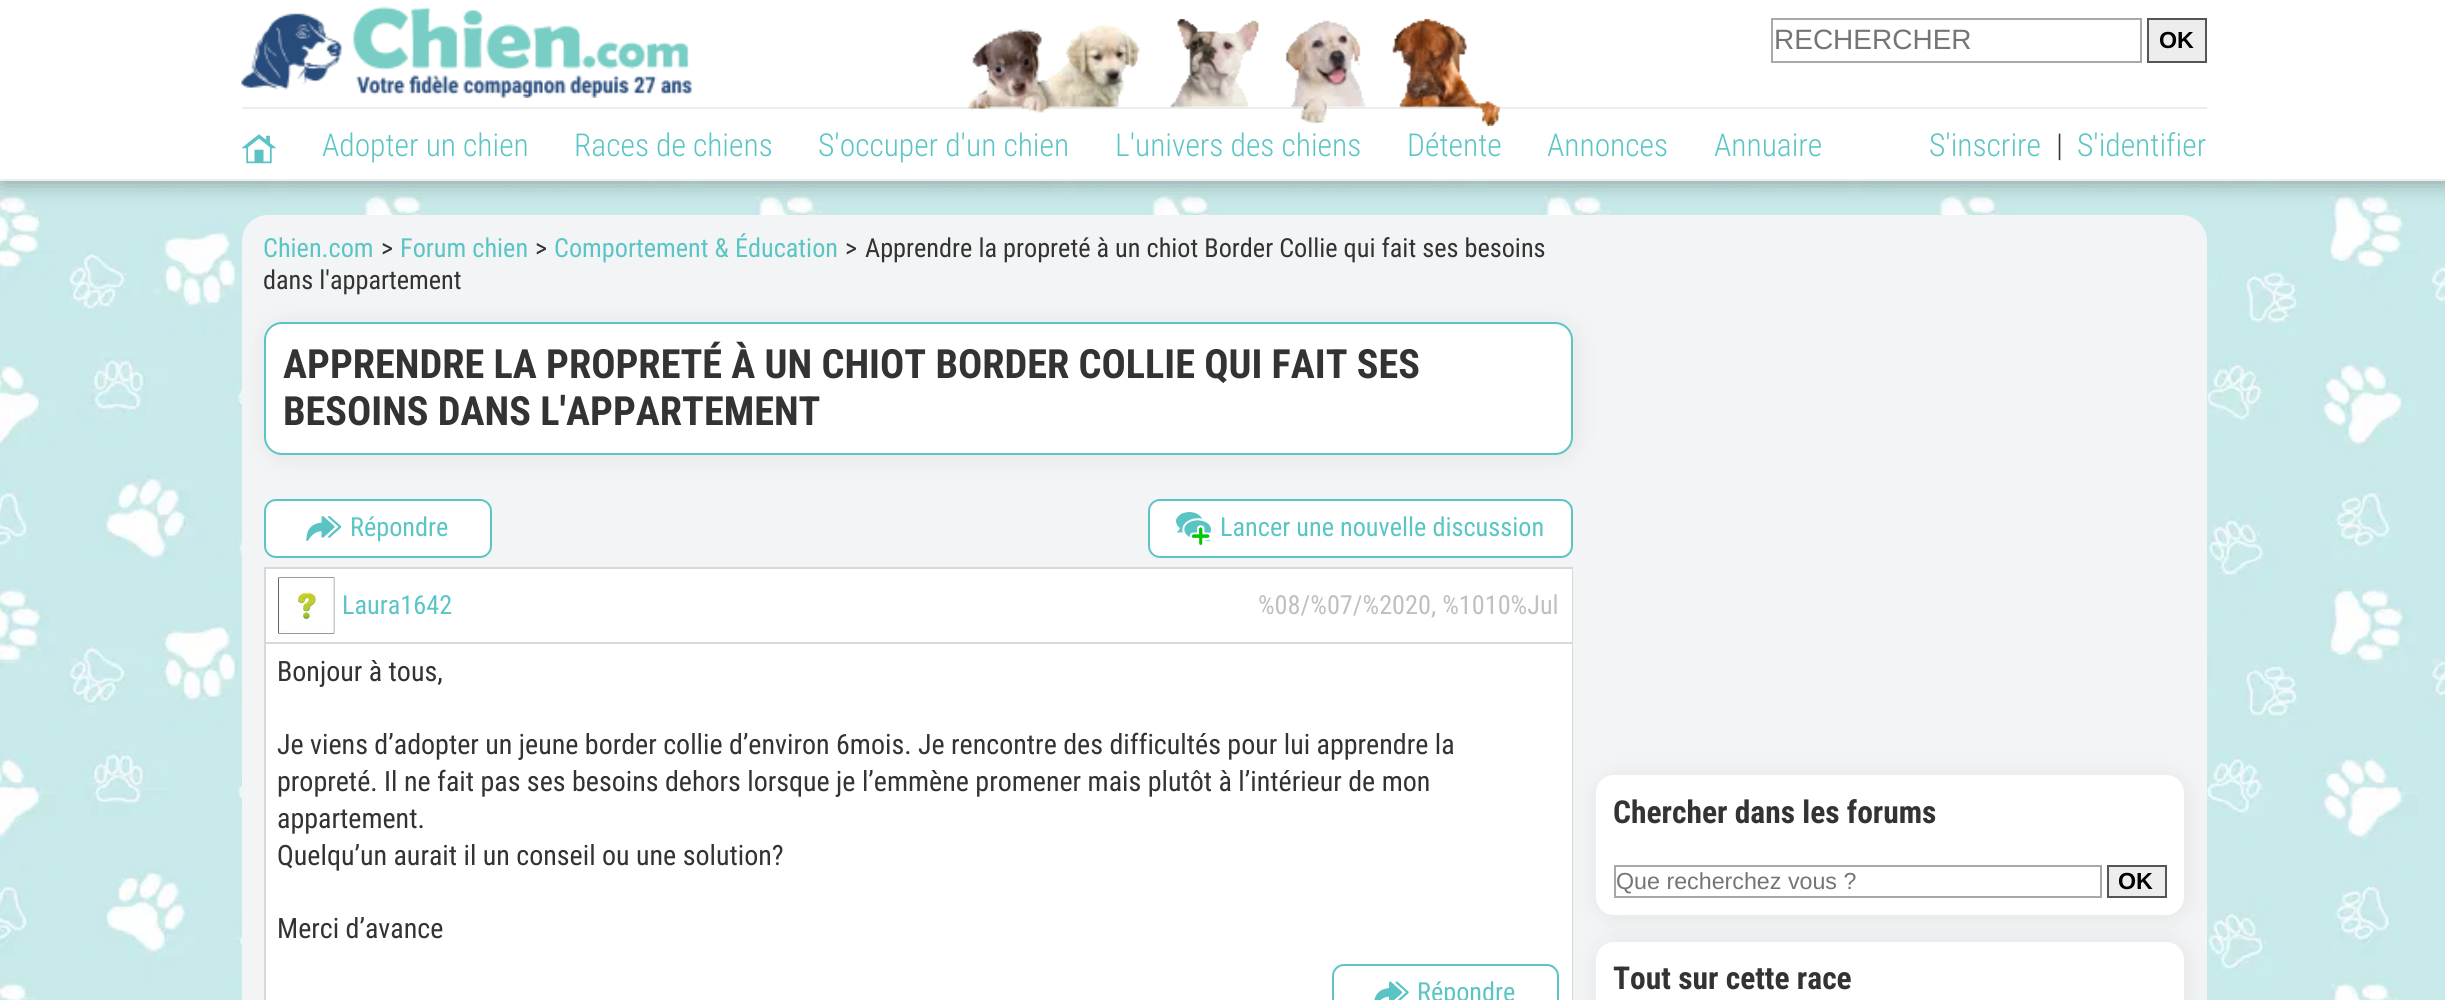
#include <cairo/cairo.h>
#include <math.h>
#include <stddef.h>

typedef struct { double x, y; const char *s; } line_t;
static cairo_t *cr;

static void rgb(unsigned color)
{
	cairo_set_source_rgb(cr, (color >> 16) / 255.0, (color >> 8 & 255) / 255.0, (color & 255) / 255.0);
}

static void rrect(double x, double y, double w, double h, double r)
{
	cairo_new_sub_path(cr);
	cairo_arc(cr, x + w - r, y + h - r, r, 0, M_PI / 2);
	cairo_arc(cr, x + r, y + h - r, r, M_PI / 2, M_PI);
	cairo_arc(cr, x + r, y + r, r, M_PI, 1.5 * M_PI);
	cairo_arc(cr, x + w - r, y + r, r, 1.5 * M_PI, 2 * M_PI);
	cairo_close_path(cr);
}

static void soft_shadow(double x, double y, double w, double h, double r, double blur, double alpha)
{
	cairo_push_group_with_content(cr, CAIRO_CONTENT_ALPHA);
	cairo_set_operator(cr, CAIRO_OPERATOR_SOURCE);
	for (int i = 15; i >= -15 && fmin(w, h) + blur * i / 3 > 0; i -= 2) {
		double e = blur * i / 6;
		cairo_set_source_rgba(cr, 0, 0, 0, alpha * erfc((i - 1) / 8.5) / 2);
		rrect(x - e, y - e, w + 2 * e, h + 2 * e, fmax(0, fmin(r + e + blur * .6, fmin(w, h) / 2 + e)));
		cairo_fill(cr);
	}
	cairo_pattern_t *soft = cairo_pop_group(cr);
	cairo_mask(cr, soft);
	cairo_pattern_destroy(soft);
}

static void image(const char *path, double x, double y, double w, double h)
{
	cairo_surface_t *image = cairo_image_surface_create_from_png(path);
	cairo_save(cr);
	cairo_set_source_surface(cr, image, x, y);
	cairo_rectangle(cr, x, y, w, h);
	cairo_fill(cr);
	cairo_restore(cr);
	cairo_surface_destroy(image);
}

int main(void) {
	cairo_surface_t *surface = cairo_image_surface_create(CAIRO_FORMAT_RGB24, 2445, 1000);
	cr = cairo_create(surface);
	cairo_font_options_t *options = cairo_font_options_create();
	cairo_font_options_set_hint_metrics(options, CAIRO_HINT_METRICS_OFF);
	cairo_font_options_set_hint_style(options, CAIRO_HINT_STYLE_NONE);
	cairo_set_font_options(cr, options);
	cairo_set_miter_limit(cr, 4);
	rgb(0xffffff);
	cairo_paint(cr);
	image("img/1.png", 0, 181, 2445, 819);
	rgb(0x484848);
	soft_shadow(2, 2, 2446, 180, 0, 11.5, 0.5);
	rgb(0xffffff);
	cairo_rectangle(cr, 0, 0, 2445, 179);
	cairo_fill(cr);
	rgb(0xeceded);
	cairo_rectangle(cr, 0, 179, 2445, 2);
	cairo_fill(cr);
	image("img/2.png", 241, 6, 451, 92);
	cairo_rectangle(cr, 242, 107, 1965, 2);
	cairo_fill(cr);
	image("img/3.png", 967, 19, 533, 107);
	cairo_rectangle(cr, 1772, 19, 369, 43);
	rgb(0xa9a9a9);
	cairo_stroke(cr);
	rgb(0xededed);
	cairo_rectangle(cr, 2148, 19, 58, 43);
	cairo_fill_preserve(cr);
	rgb(0x585452);
	cairo_stroke(cr);
	image("img/4.png", 242, 134, 35, 30);
	rgb(0xf3f4f5);
	rrect(242, 215, 1965, 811, 26);
	cairo_fill(cr);
	rgb(0x484848);
	soft_shadow(266, 324, 1309, 133, 18, 11.5, 0.1);
	rgb(0xffffff);
	rrect(265, 323, 1307, 131, 17);
	cairo_fill_preserve(cr);
	rgb(0x5bc5c5);
	cairo_stroke(cr);
	rgb(0xffffff);
	rrect(265, 500, 226, 57, 11);
	cairo_fill_preserve(cr);
	rgb(0x5bc5c5);
	cairo_stroke(cr);
	image("img/5.png", 306, 516, 35, 25);
	rgb(0xffffff);
	rrect(1149, 500, 423, 57, 11);
	cairo_fill_preserve(cr);
	rgb(0x5bc5c5);
	cairo_stroke(cr);
	image("img/6.png", 1176, 512, 35, 33);
	rgb(0xd8d8d8);
	cairo_rectangle(cr, 264, 567, 1309, 433);
	cairo_fill(cr);
	rgb(0xffffff);
	cairo_rectangle(cr, 266, 569, 1306, 73);
	cairo_fill(cr);
	image("img/7.png", 278, 577, 57, 57);
	cairo_rectangle(cr, 266, 644, 1306, 356);
	cairo_fill(cr);
	rrect(1333, 965, 225, 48, 11);
	rgb(0x5bc5c5);
	cairo_stroke(cr);
	image("img/8.png", 1374, 981, 35, 19);
	rgb(0x484848);
	soft_shadow(1598, 777, 588, 140, 18, 11.5, 0.1);
	rgb(0xffffff);
	rrect(1596, 775, 588, 140, 18);
	cairo_fill(cr);
	cairo_rectangle(cr, 1615, 866, 486, 31);
	rgb(0xa9a9a9);
	cairo_stroke(cr);
	rgb(0xededed);
	cairo_rectangle(cr, 2108, 866, 58, 31);
	cairo_fill_preserve(cr);
	rgb(0x585452);
	cairo_stroke(cr);
	rgb(0x484848);
	soft_shadow(1598, 943, 588, 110, 18, 11.5, 0.1);
	rgb(0xffffff);
	rrect(1596, 942, 588, 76, 18);
	cairo_fill(cr);
	cairo_select_font_face(cr, "Liberation Sans", CAIRO_FONT_SLANT_NORMAL, CAIRO_FONT_WEIGHT_NORMAL);
	cairo_set_font_size(cr, 28);
	rgb(0x757575);
	cairo_move_to(cr, 1774, 49);
	cairo_show_text(cr, "RECHERCHER");
	cairo_select_font_face(cr, "Liberation Sans", CAIRO_FONT_SLANT_NORMAL, CAIRO_FONT_WEIGHT_BOLD);
	cairo_set_font_size(cr, 23.25);
	rgb(0x000000);
	cairo_move_to(cr, 2159, 48);
	cairo_show_text(cr, "OK");
	cairo_select_font_face(cr, "Roboto Light", CAIRO_FONT_SLANT_NORMAL, CAIRO_FONT_WEIGHT_NORMAL);
	cairo_set_font_size(cr, 31.5);
	rgb(0x5bc5c5);
	{
		static const line_t items[] = {
			{322, 156, "Adopter un chien"},
			{574, 156, "Races de chiens"},
			{818, 156, "S'occuper d'un chien"},
			{1115, 156, "L'univers des chiens"},
			{1407, 156, "Détente"},
			{1547, 156, "Annonces"},
			{1714, 156, "Annuaire"},
			{1929, 156, "S'inscrire"},
		};
		for (size_t i = 0; i < sizeof items / sizeof *items; i++) {
			cairo_move_to(cr, items[i].x, items[i].y);
			cairo_show_text(cr, items[i].s);
		}
	}
	rgb(0x333333);
	cairo_move_to(cr, 2056, 156);
	cairo_show_text(cr, "|");
	rgb(0x5bc5c5);
	cairo_move_to(cr, 2077, 156);
	cairo_show_text(cr, "S'identifier");
	cairo_select_font_face(cr, "Roboto Condensed", CAIRO_FONT_SLANT_NORMAL, CAIRO_FONT_WEIGHT_NORMAL);
	cairo_set_font_size(cr, 26.25);
	cairo_move_to(cr, 263, 257);
	cairo_show_text(cr, "Chien.com");
	rgb(0x333333);
	cairo_move_to(cr, 381, 257);
	cairo_show_text(cr, ">");
	rgb(0x5bc5c5);
	cairo_move_to(cr, 400, 257);
	cairo_show_text(cr, "Forum chien");
	rgb(0x333333);
	cairo_move_to(cr, 535, 257);
	cairo_show_text(cr, ">");
	rgb(0x5bc5c5);
	cairo_move_to(cr, 554, 257);
	cairo_show_text(cr, "Comportement & Éducation");
	rgb(0x333333);
	{
		static const line_t items[] = {
			{845, 257, ">"},
			{865, 257, "Apprendre la propreté à un chiot Border Collie qui fait ses besoins"},
			{263, 289, "dans l'appartement"},
		};
		for (size_t i = 0; i < sizeof items / sizeof *items; i++) {
			cairo_move_to(cr, items[i].x, items[i].y);
			cairo_show_text(cr, items[i].s);
		}
	}
	cairo_select_font_face(cr, "Roboto", CAIRO_FONT_SLANT_NORMAL, CAIRO_FONT_WEIGHT_BOLD);
	cairo_set_font_size(cr, 40.25);
	cairo_move_to(cr, 283, 378);
	cairo_show_text(cr, "APPRENDRE LA PROPRETÉ À UN CHIOT BORDER COLLIE QUI FAIT SES");
	cairo_move_to(cr, 283, 425);
	cairo_show_text(cr, "BESOINS DANS L'APPARTEMENT");
	cairo_select_font_face(cr, "Roboto Condensed", CAIRO_FONT_SLANT_NORMAL, CAIRO_FONT_WEIGHT_NORMAL);
	cairo_set_font_size(cr, 26.25);
	rgb(0x5bc5c5);
	{
		static const line_t items[] = {
			{350, 536, "Répondre"},
			{1220, 536, "Lancer une nouvelle discussion"},
			{342, 614, "Laura1642"},
		};
		for (size_t i = 0; i < sizeof items / sizeof *items; i++) {
			cairo_move_to(cr, items[i].x, items[i].y);
			cairo_show_text(cr, items[i].s);
		}
	}
	rgb(0xc2bfbe);
	cairo_move_to(cr, 1258, 614);
	cairo_show_text(cr, "%08/%07/%2020, %1010%Jul");
	cairo_set_font_size(cr, 28);
	rgb(0x333333);
	{
		static const line_t items[] = {
			{277, 681, "Bonjour à tous,"},
			{277, 754, "Je viens d’adopter un jeune border collie d’environ 6mois. Je rencontre des difficultés pour lui apprendre la"},
			{277, 791, "propreté. Il ne fait pas ses besoins dehors lorsque je l’emmène promener mais plutôt à l’intérieur de mon"},
			{277, 828, "appartement."},
			{277, 865, "Quelqu’un aurait il un conseil ou une solution?"},
			{277, 938, "Merci d’avance"},
		};
		for (size_t i = 0; i < sizeof items / sizeof *items; i++) {
			cairo_move_to(cr, items[i].x, items[i].y);
			cairo_show_text(cr, items[i].s);
		}
	}
	cairo_set_font_size(cr, 26.25);
	rgb(0x5bc5c5);
	cairo_move_to(cr, 1417, 1001);
	cairo_show_text(cr, "Répondre");
	cairo_select_font_face(cr, "Roboto", CAIRO_FONT_SLANT_NORMAL, CAIRO_FONT_WEIGHT_BOLD);
	cairo_set_font_size(cr, 31.5);
	rgb(0x333333);
	cairo_move_to(cr, 1613, 823);
	cairo_show_text(cr, "Chercher dans les forums");
	cairo_select_font_face(cr, "Liberation Sans", CAIRO_FONT_SLANT_NORMAL, CAIRO_FONT_WEIGHT_NORMAL);
	cairo_set_font_size(cr, 23.25);
	rgb(0x757575);
	cairo_move_to(cr, 1616, 889);
	cairo_show_text(cr, "Que recherchez vous ?");
	cairo_select_font_face(cr, "Liberation Sans", CAIRO_FONT_SLANT_NORMAL, CAIRO_FONT_WEIGHT_BOLD);
	rgb(0x000000);
	cairo_move_to(cr, 2118, 889);
	cairo_show_text(cr, "OK");
	cairo_select_font_face(cr, "Roboto", CAIRO_FONT_SLANT_NORMAL, CAIRO_FONT_WEIGHT_BOLD);
	cairo_set_font_size(cr, 31.5);
	rgb(0x333333);
	cairo_move_to(cr, 1613, 989);
	cairo_show_text(cr, "Tout sur cette race");
	cairo_surface_write_to_png(surface, "page.png");
	cairo_font_options_destroy(options);
	cairo_destroy(cr);
	cairo_surface_destroy(surface);
	return 0;
}
